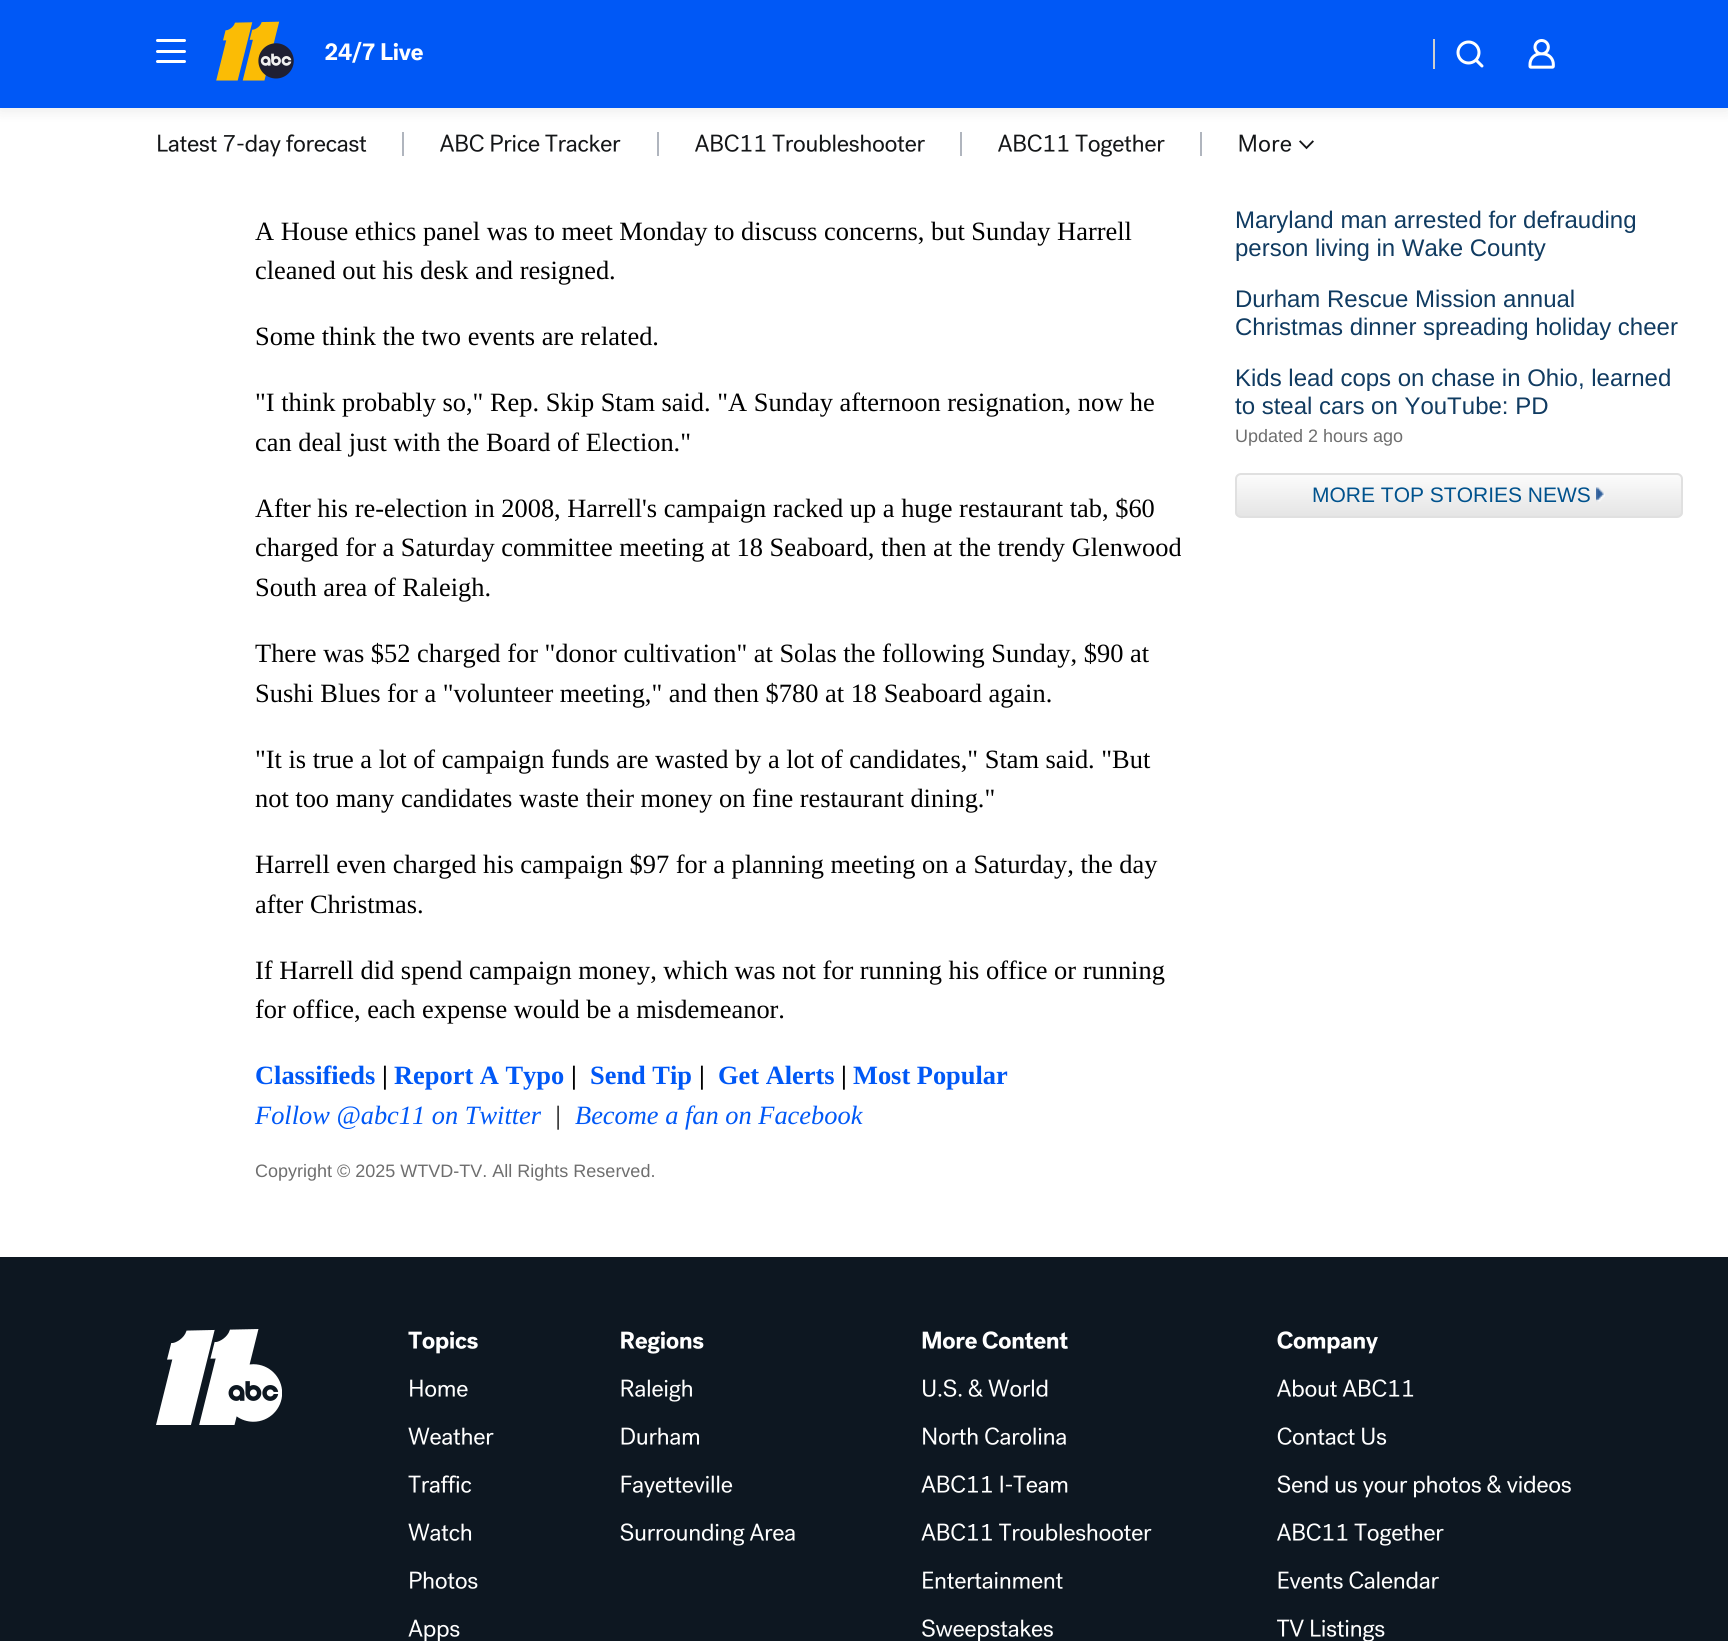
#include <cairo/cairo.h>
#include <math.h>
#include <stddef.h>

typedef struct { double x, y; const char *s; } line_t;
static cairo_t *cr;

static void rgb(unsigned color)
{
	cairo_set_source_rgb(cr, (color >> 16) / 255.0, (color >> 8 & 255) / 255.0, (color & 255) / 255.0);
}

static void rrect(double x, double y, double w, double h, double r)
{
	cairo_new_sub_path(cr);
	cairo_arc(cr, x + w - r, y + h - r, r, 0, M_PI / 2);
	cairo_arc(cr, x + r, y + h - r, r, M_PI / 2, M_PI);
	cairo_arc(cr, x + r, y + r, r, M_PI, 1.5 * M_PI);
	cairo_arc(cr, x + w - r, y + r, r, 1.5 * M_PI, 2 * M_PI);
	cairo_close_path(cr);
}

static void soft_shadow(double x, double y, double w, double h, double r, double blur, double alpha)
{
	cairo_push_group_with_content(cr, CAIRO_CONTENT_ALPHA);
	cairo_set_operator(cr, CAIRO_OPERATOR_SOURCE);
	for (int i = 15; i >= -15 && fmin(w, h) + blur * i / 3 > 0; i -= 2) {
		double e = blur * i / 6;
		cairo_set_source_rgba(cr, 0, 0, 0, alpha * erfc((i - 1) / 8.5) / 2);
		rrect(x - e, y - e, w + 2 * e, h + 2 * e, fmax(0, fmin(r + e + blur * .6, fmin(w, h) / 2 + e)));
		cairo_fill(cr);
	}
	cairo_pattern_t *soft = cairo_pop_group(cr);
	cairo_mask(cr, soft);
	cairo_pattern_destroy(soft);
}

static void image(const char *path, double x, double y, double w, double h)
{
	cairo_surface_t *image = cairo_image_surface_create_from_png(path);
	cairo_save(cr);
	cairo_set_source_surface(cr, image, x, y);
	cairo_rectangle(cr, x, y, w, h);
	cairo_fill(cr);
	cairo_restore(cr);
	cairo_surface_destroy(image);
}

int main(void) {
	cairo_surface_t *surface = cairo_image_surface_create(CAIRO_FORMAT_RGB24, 1728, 1641);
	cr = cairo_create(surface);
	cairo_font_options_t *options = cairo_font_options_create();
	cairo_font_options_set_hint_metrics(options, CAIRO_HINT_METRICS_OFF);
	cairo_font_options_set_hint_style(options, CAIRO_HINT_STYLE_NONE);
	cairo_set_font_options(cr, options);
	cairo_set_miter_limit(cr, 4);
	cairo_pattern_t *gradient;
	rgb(0xffffff);
	cairo_paint(cr);
	image("img/5.png", 158, 134, 209, 23);
	rgb(0xb0b5be);
	cairo_rectangle(cr, 402, 132, 2, 24);
	cairo_fill(cr);
	image("img/6.png", 440, 134, 181, 18);
	cairo_rectangle(cr, 657, 132, 2, 24);
	cairo_fill(cr);
	image("img/7.png", 695, 134, 230, 18);
	cairo_rectangle(cr, 960, 132, 2, 24);
	cairo_fill(cr);
	image("img/8.png", 998, 134, 167, 23);
	cairo_rectangle(cr, 1200, 132, 2, 24);
	cairo_fill(cr);
	image("img/9.png", 1239, 134, 53, 18);
	rgb(0x000000);
	soft_shadow(0, 3, 1728, 108, 0, 7.5, 0.08);
	rgb(0x0058f6);
	cairo_rectangle(cr, 0, 0, 1728, 108);
	cairo_fill(cr);
	rgb(0xffffff);
	rrect(156, 50, 30, 3, 1.5);
	cairo_fill(cr);
	rrect(156, 39, 30, 3, 1.5);
	cairo_fill(cr);
	rrect(156, 60, 30, 3, 1.5);
	cairo_fill(cr);
	image("img/1.png", 216, 21, 78, 60);
	image("img/2.png", 325, 41, 98, 22);
	rgb(0xcecfcf);
	cairo_rectangle(cr, 1433, 39, 2, 30);
	cairo_fill(cr);
	image("img/3.png", 1456, 40, 28, 28);
	image("img/4.png", 1528, 39, 27, 30);
	image("img/10.png", 1299, 140, 15, 10);
	cairo_save(cr);
	rrect(1235, 473, 448, 45, 6);
	cairo_clip(cr);
	gradient = cairo_pattern_create_linear(1459, 474, 1459, 516);
	cairo_pattern_add_color_stop_rgba(gradient, 0, 0.988, 0.988, 0.988, 1);
	cairo_pattern_add_color_stop_rgba(gradient, 1, 0.898, 0.898, 0.898, 1);
	cairo_set_source(cr, gradient);
	cairo_pattern_destroy(gradient);
	cairo_rectangle(cr, 1235, 474, 448, 42);
	cairo_fill(cr);
	cairo_restore(cr);
	rrect(1236, 474, 446, 43, 5);
	rgb(0xe0e0e0);
	cairo_stroke(cr);
	image("img/11.png", 1596, 487, 9, 15);
	rgb(0x0d1721);
	cairo_rectangle(cr, 0, 1257, 1728, 384);
	cairo_fill(cr);
	image("img/12.png", 156, 1329, 126, 96);
	image("img/13.png", 408, 1331, 70, 23);
	image("img/14.png", 410, 1379, 58, 18);
	image("img/15.png", 408, 1427, 86, 18);
	image("img/16.png", 408, 1475, 64, 18);
	image("img/17.png", 408, 1523, 64, 18);
	image("img/18.png", 410, 1571, 68, 18);
	image("img/19.png", 408, 1619, 52, 22);
	image("img/20.png", 621, 1331, 83, 23);
	image("img/21.png", 621, 1379, 71, 23);
	image("img/22.png", 621, 1427, 78, 18);
	image("img/23.png", 621, 1475, 112, 23);
	image("img/24.png", 620, 1523, 175, 23);
	image("img/25.png", 922, 1331, 146, 18);
	image("img/26.png", 923, 1379, 125, 18);
	image("img/27.png", 923, 1427, 143, 18);
	image("img/28.png", 921, 1475, 147, 18);
	image("img/29.png", 921, 1523, 231, 18);
	image("img/30.png", 923, 1571, 140, 18);
	image("img/31.png", 922, 1619, 131, 22);
	image("img/32.png", 1277, 1331, 101, 23);
	image("img/33.png", 1277, 1379, 137, 18);
	image("img/34.png", 1277, 1427, 110, 18);
	image("img/35.png", 1277, 1475, 294, 23);
	image("img/36.png", 1277, 1523, 167, 23);
	image("img/37.png", 1278, 1571, 161, 18);
	image("img/38.png", 1277, 1619, 108, 22);
	cairo_select_font_face(cr, "Liberation Serif", CAIRO_FONT_SLANT_NORMAL, CAIRO_FONT_WEIGHT_NORMAL);
	cairo_set_font_size(cr, 26.4);
	rgb(0x000000);
	{
		static const line_t items[] = {
			{255, 240, "A House ethics panel was to meet Monday to discuss concerns, but Sunday Harrell"},
			{255, 279, "cleaned out his desk and resigned."},
			{255, 345, "Some think the two events are related."},
			{255, 411, "\"I think probably so,\" Rep. Skip Stam said. \"A Sunday afternoon resignation, now he"},
			{255, 451, "can deal just with the Board of Election.\""},
			{255, 517, "After his re-election in 2008, Harrell's campaign racked up a huge restaurant tab, $60"},
			{255, 556, "charged for a Saturday committee meeting at 18 Seaboard, then at the trendy Glenwood"},
			{255, 596, "South area of Raleigh."},
			{255, 662, "There was $52 charged for \"donor cultivation\" at Solas the following Sunday, $90 at"},
			{255, 702, "Sushi Blues for a \"volunteer meeting,\" and then $780 at 18 Seaboard again."},
			{255, 768, "\"It is true a lot of campaign funds are wasted by a lot of candidates,\" Stam said. \"But"},
			{255, 807, "not too many candidates waste their money on fine restaurant dining.\""},
			{255, 873, "Harrell even charged his campaign $97 for a planning meeting on a Saturday, the day"},
			{255, 913, "after Christmas."},
			{255, 979, "If Harrell did spend campaign money, which was not for running his office or running"},
			{255, 1018, "for office, each expense would be a misdemeanor."},
		};
		for (size_t i = 0; i < sizeof items / sizeof *items; i++) {
			cairo_move_to(cr, items[i].x, items[i].y);
			cairo_show_text(cr, items[i].s);
		}
	}
	cairo_select_font_face(cr, "Liberation Serif", CAIRO_FONT_SLANT_NORMAL, CAIRO_FONT_WEIGHT_BOLD);
	rgb(0x0058f6);
	cairo_move_to(cr, 255, 1084);
	cairo_show_text(cr, "Classifieds");
	rgb(0x000000);
	cairo_move_to(cr, 382, 1084);
	cairo_show_text(cr, "|");
	rgb(0x0058f6);
	cairo_move_to(cr, 394, 1084);
	cairo_show_text(cr, "Report A Typo");
	rgb(0x000000);
	cairo_move_to(cr, 571, 1084);
	cairo_show_text(cr, "|");
	rgb(0x0058f6);
	cairo_move_to(cr, 590, 1084);
	cairo_show_text(cr, "Send Tip");
	rgb(0x000000);
	cairo_move_to(cr, 699, 1084);
	cairo_show_text(cr, "|");
	rgb(0x0058f6);
	cairo_move_to(cr, 718, 1084);
	cairo_show_text(cr, "Get Alerts");
	rgb(0x000000);
	cairo_move_to(cr, 841, 1084);
	cairo_show_text(cr, "|");
	rgb(0x0058f6);
	cairo_move_to(cr, 853, 1084);
	cairo_show_text(cr, "Most Popular");
	cairo_select_font_face(cr, "Liberation Serif", CAIRO_FONT_SLANT_ITALIC, CAIRO_FONT_WEIGHT_NORMAL);
	cairo_move_to(cr, 255, 1124);
	cairo_show_text(cr, "Follow @abc11 on Twitter");
	rgb(0x000000);
	cairo_move_to(cr, 554, 1124);
	cairo_show_text(cr, "|");
	rgb(0x0058f6);
	cairo_move_to(cr, 575, 1124);
	cairo_show_text(cr, "Become a fan on Facebook");
	cairo_select_font_face(cr, "Liberation Sans", CAIRO_FONT_SLANT_NORMAL, CAIRO_FONT_WEIGHT_NORMAL);
	cairo_set_font_size(cr, 18);
	rgb(0x6e6e6e);
	cairo_move_to(cr, 255, 1177);
	cairo_show_text(cr, "Copyright © 2025 WTVD-TV. All Rights Reserved.");
	cairo_set_font_size(cr, 24);
	rgb(0x103b61);
	{
		static const line_t items[] = {
			{1235, 228, "Maryland man arrested for defrauding"},
			{1235, 256, "person living in Wake County"},
			{1235, 307, "Durham Rescue Mission annual"},
			{1235, 335, "Christmas dinner spreading holiday cheer"},
			{1235, 386, "Kids lead cops on chase in Ohio, learned"},
			{1235, 414, "to steal cars on YouTube: PD"},
		};
		for (size_t i = 0; i < sizeof items / sizeof *items; i++) {
			cairo_move_to(cr, items[i].x, items[i].y);
			cairo_show_text(cr, items[i].s);
		}
	}
	cairo_set_font_size(cr, 18);
	rgb(0x6e6e6e);
	cairo_move_to(cr, 1235, 442);
	cairo_show_text(cr, "Updated 2 hours ago");
	cairo_set_font_size(cr, 21);
	rgb(0x00528d);
	cairo_move_to(cr, 1312, 502);
	cairo_show_text(cr, "MORE TOP STORIES NEWS");
	cairo_surface_write_to_png(surface, "page.png");
	cairo_font_options_destroy(options);
	cairo_destroy(cr);
	cairo_surface_destroy(surface);
	return 0;
}
